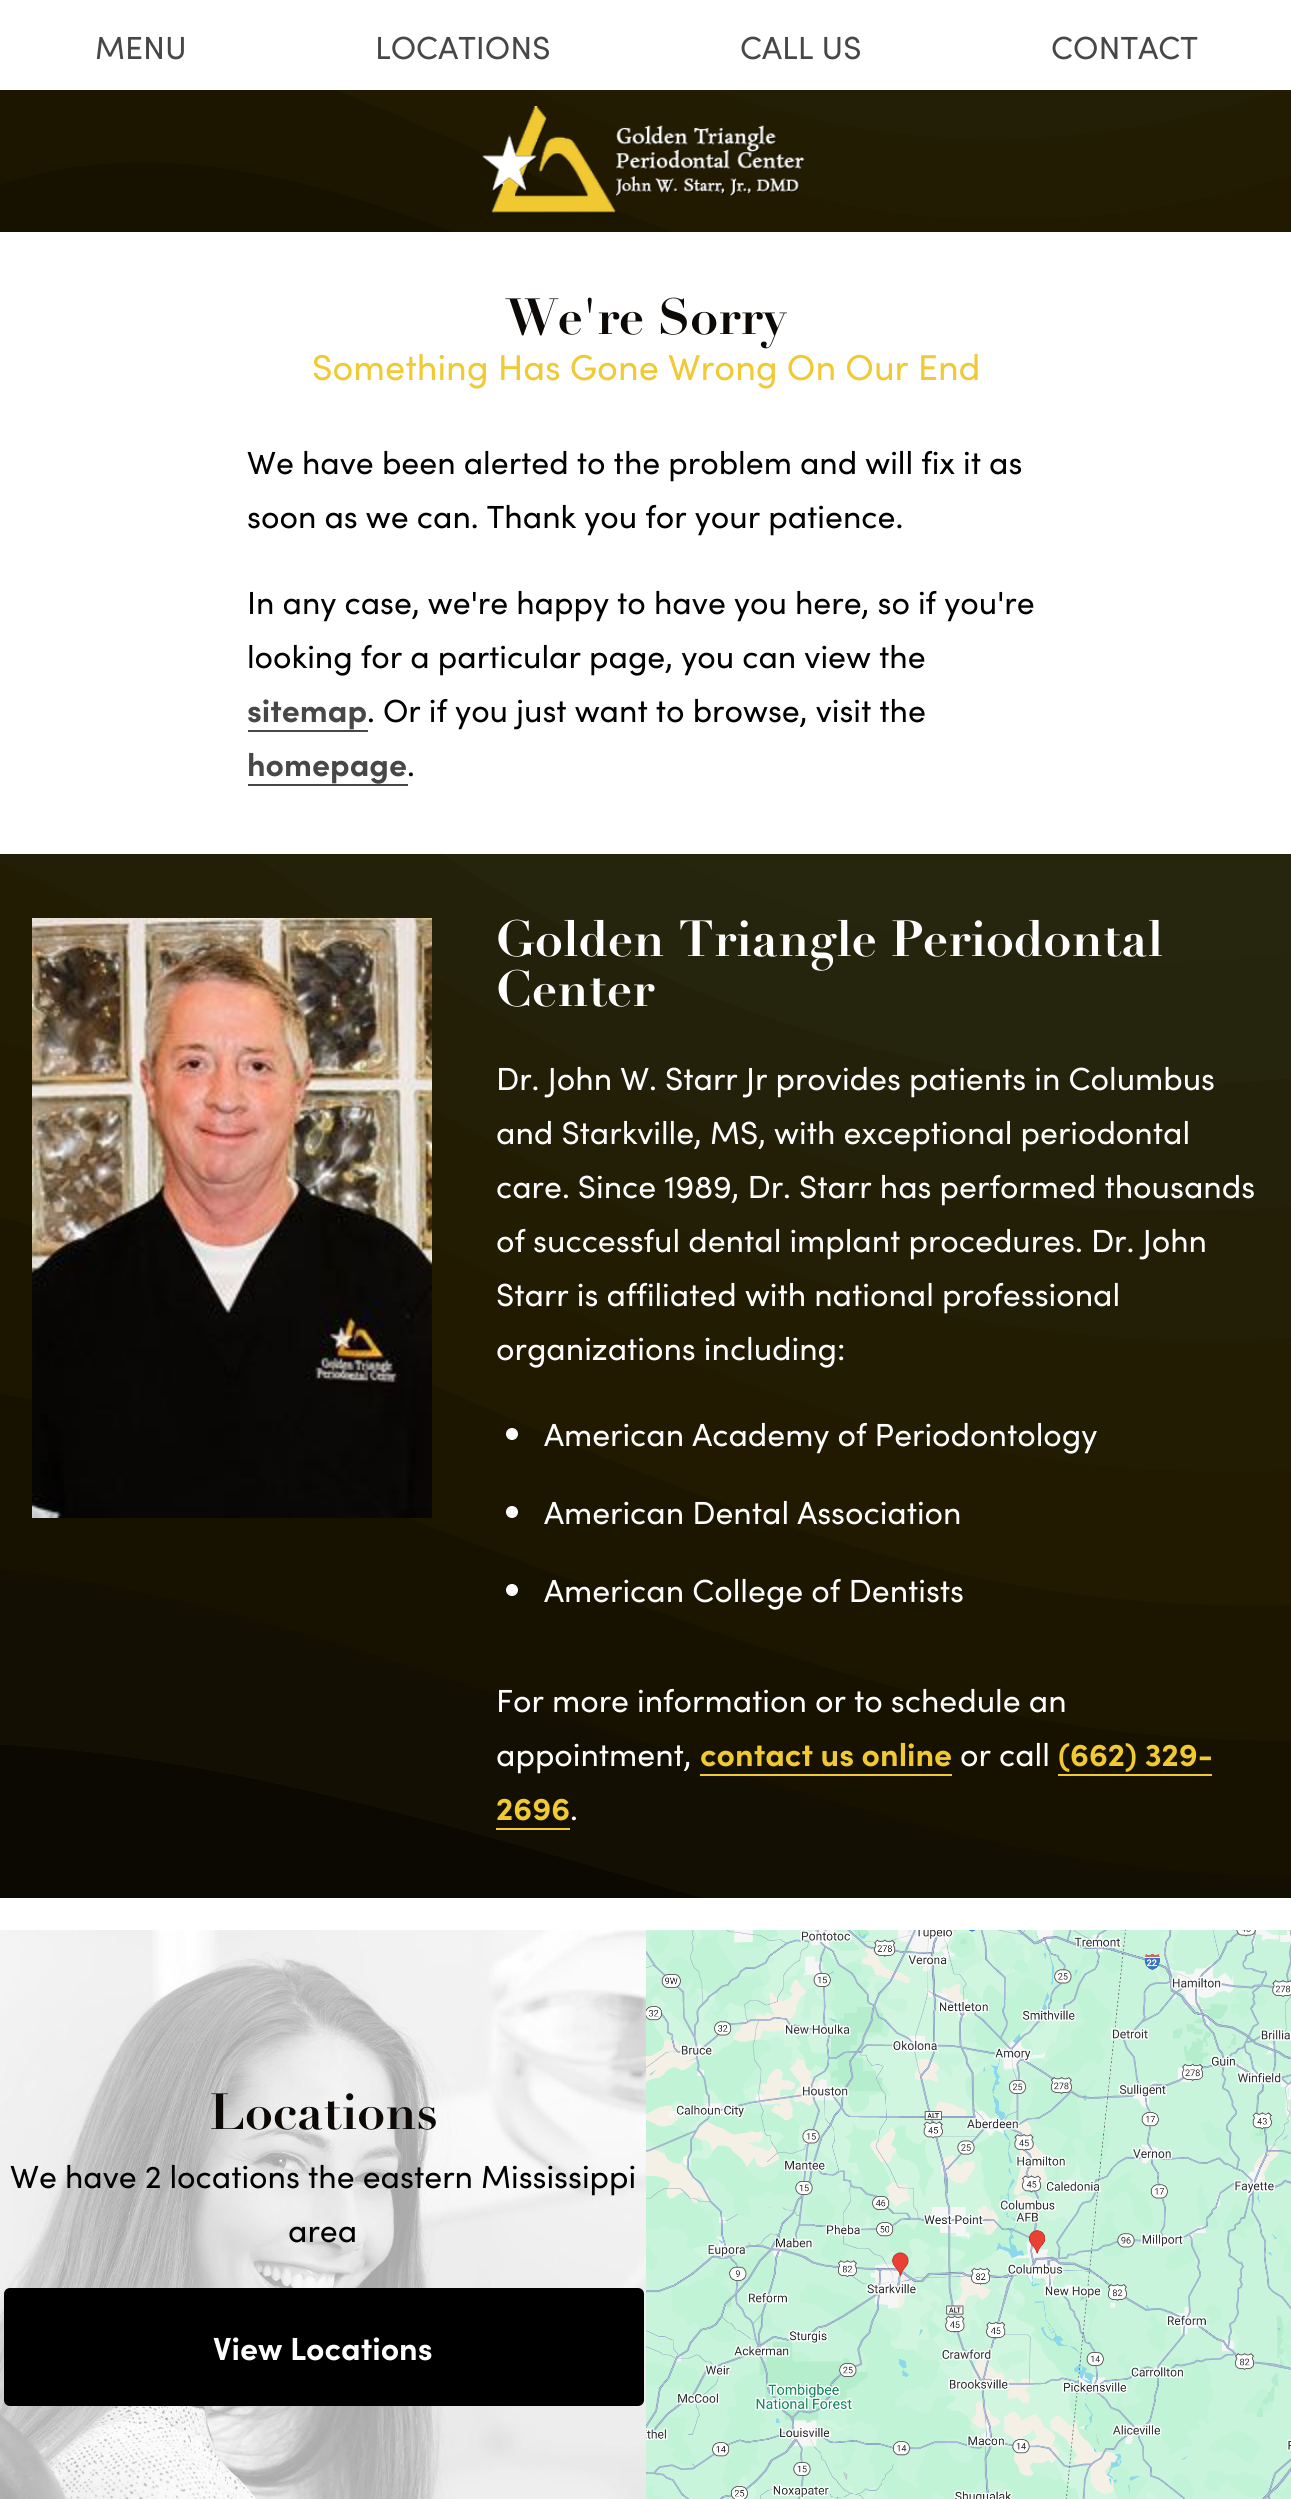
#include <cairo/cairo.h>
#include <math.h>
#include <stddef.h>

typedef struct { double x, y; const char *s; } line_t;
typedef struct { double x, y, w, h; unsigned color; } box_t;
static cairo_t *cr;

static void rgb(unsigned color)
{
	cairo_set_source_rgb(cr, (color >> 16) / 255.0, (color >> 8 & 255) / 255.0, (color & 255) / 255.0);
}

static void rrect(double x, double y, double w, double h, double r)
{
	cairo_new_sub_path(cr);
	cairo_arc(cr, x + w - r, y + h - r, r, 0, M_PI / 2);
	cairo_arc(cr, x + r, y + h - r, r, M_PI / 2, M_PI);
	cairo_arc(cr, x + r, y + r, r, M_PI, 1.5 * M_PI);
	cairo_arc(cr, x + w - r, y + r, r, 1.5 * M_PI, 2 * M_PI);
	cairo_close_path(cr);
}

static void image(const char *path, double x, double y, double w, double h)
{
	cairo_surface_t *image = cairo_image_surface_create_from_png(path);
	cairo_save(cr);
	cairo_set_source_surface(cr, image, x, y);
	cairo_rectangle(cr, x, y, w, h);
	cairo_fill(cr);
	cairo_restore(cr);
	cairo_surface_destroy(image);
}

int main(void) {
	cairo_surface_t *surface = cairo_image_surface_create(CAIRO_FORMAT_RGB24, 1291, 2499);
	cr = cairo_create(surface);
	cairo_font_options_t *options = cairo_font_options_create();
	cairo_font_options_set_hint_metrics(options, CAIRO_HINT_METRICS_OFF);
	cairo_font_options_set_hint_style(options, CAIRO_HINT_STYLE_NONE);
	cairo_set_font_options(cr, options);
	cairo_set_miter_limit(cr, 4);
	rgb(0xffffff);
	cairo_paint(cr);
	image("img/1.png", 0, 90, 1291, 142);
	image("img/2.png", 482, 106, 324, 108);
	rgb(0x474747);
	cairo_rectangle(cr, 248, 730, 120, 2);
	cairo_fill(cr);
	cairo_rectangle(cr, 248, 784, 160, 2);
	cairo_fill(cr);
	image("img/3.png", 0, 854, 1291, 1044);
	image("img/4.png", 32, 918, 400, 600);
	rgb(0xffffff);
	cairo_arc(cr, 512, 1434, 6, 0, 2 * M_PI);
	cairo_fill(cr);
	cairo_arc(cr, 512, 1512, 6, 0, 2 * M_PI);
	cairo_fill(cr);
	cairo_arc(cr, 512, 1590, 6, 0, 2 * M_PI);
	cairo_fill(cr);
	{
		static const box_t items[] = {
			{700, 1774, 252, 2, 0xf1c932},
			{1058, 1774, 154, 2, 0xf1c932},
			{496, 1828, 74, 2, 0xf1c932},
		};
		for (size_t i = 0; i < sizeof items / sizeof *items; i++) {
			rgb(items[i].color);
			cairo_rectangle(cr, items[i].x, items[i].y, items[i].w, items[i].h);
			cairo_fill(cr);
		}
	}
	image("img/5.png", 0, 1930, 646, 569);
	rgb(0x000000);
	rrect(4, 2288, 640, 118, 6);
	cairo_fill(cr);
	image("img/6.png", 646, 1930, 645, 569);
	cairo_select_font_face(cr, "Sofia", CAIRO_FONT_SLANT_NORMAL, CAIRO_FONT_WEIGHT_NORMAL);
	cairo_set_font_size(cr, 32);
	rgb(0x474747);
	{
		static const line_t items[] = {
			{95, 59, "MENU"},
			{375, 59, "LOCATIONS"},
			{740, 59, "CALL US"},
			{1051, 59, "CONTACT"},
		};
		for (size_t i = 0; i < sizeof items / sizeof *items; i++) {
			cairo_move_to(cr, items[i].x, items[i].y);
			cairo_show_text(cr, items[i].s);
		}
	}
	cairo_select_font_face(cr, "Didot", CAIRO_FONT_SLANT_NORMAL, CAIRO_FONT_WEIGHT_BOLD);
	cairo_set_font_size(cr, 50);
	rgb(0x0d0906);
	cairo_move_to(cr, 506, 334);
	cairo_show_text(cr, "We're Sorry");
	cairo_select_font_face(cr, "Sofia", CAIRO_FONT_SLANT_NORMAL, CAIRO_FONT_WEIGHT_NORMAL);
	cairo_set_font_size(cr, 36);
	rgb(0xf1c932);
	cairo_move_to(cr, 312, 380);
	cairo_show_text(cr, "Something Has Gone Wrong On Our End");
	cairo_set_font_size(cr, 32);
	rgb(0x000000);
	{
		static const line_t items[] = {
			{247, 474, "We have been alerted to the problem and will fix it as"},
			{247, 528, "soon as we can. Thank you for your patience."},
			{247, 614, "In any case, we're happy to have you here, so if you're"},
			{247, 668, "looking for a particular page, you can view the"},
		};
		for (size_t i = 0; i < sizeof items / sizeof *items; i++) {
			cairo_move_to(cr, items[i].x, items[i].y);
			cairo_show_text(cr, items[i].s);
		}
	}
	cairo_select_font_face(cr, "Sofia", CAIRO_FONT_SLANT_NORMAL, CAIRO_FONT_WEIGHT_BOLD);
	rgb(0x474747);
	cairo_move_to(cr, 247, 722);
	cairo_show_text(cr, "sitemap");
	cairo_select_font_face(cr, "Sofia", CAIRO_FONT_SLANT_NORMAL, CAIRO_FONT_WEIGHT_NORMAL);
	rgb(0x000000);
	cairo_move_to(cr, 367, 722);
	cairo_show_text(cr, ". Or if you just want to browse, visit the");
	cairo_select_font_face(cr, "Sofia", CAIRO_FONT_SLANT_NORMAL, CAIRO_FONT_WEIGHT_BOLD);
	rgb(0x474747);
	cairo_move_to(cr, 247, 776);
	cairo_show_text(cr, "homepage");
	cairo_select_font_face(cr, "Sofia", CAIRO_FONT_SLANT_NORMAL, CAIRO_FONT_WEIGHT_NORMAL);
	rgb(0x000000);
	cairo_move_to(cr, 407, 776);
	cairo_show_text(cr, ".");
	cairo_select_font_face(cr, "Didot", CAIRO_FONT_SLANT_NORMAL, CAIRO_FONT_WEIGHT_BOLD);
	cairo_set_font_size(cr, 50);
	rgb(0xffffff);
	cairo_move_to(cr, 496, 956);
	cairo_show_text(cr, "Golden Triangle Periodontal");
	cairo_move_to(cr, 496, 1006);
	cairo_show_text(cr, "Center");
	cairo_select_font_face(cr, "Sofia", CAIRO_FONT_SLANT_NORMAL, CAIRO_FONT_WEIGHT_NORMAL);
	cairo_set_font_size(cr, 32);
	{
		static const line_t items[] = {
			{496, 1090, "Dr. John W. Starr Jr provides patients in Columbus"},
			{496, 1144, "and Starkville, MS, with exceptional periodontal"},
			{496, 1198, "care. Since 1989, Dr. Starr has performed thousands"},
			{496, 1252, "of successful dental implant procedures. Dr. John"},
			{496, 1306, "Starr is affiliated with national professional"},
			{496, 1360, "organizations including:"},
			{544, 1446, "American Academy of Periodontology"},
			{544, 1524, "American Dental Association"},
			{544, 1602, "American College of Dentists"},
			{496, 1712, "For more information or to schedule an"},
			{496, 1766, "appointment,"},
		};
		for (size_t i = 0; i < sizeof items / sizeof *items; i++) {
			cairo_move_to(cr, items[i].x, items[i].y);
			cairo_show_text(cr, items[i].s);
		}
	}
	cairo_select_font_face(cr, "Sofia", CAIRO_FONT_SLANT_NORMAL, CAIRO_FONT_WEIGHT_BOLD);
	rgb(0xf1c932);
	cairo_move_to(cr, 700, 1766);
	cairo_show_text(cr, "contact us online");
	cairo_select_font_face(cr, "Sofia", CAIRO_FONT_SLANT_NORMAL, CAIRO_FONT_WEIGHT_NORMAL);
	rgb(0xffffff);
	cairo_move_to(cr, 960, 1766);
	cairo_show_text(cr, "or call");
	cairo_select_font_face(cr, "Sofia", CAIRO_FONT_SLANT_NORMAL, CAIRO_FONT_WEIGHT_BOLD);
	rgb(0xf1c932);
	cairo_move_to(cr, 1058, 1766);
	cairo_show_text(cr, "(662) 329-");
	cairo_move_to(cr, 496, 1820);
	cairo_show_text(cr, "2696");
	cairo_select_font_face(cr, "Sofia", CAIRO_FONT_SLANT_NORMAL, CAIRO_FONT_WEIGHT_NORMAL);
	rgb(0xffffff);
	cairo_move_to(cr, 570, 1820);
	cairo_show_text(cr, ".");
	cairo_select_font_face(cr, "Didot", CAIRO_FONT_SLANT_NORMAL, CAIRO_FONT_WEIGHT_BOLD);
	cairo_set_font_size(cr, 50);
	rgb(0x0d0906);
	cairo_move_to(cr, 209, 2129);
	cairo_show_text(cr, "Locations");
	cairo_select_font_face(cr, "Sofia", CAIRO_FONT_SLANT_NORMAL, CAIRO_FONT_WEIGHT_NORMAL);
	cairo_set_font_size(cr, 32);
	rgb(0x000000);
	cairo_move_to(cr, 10, 2188);
	cairo_show_text(cr, "We have 2 locations the eastern Mississippi");
	cairo_move_to(cr, 288, 2242);
	cairo_show_text(cr, "area");
	cairo_select_font_face(cr, "Sofia", CAIRO_FONT_SLANT_NORMAL, CAIRO_FONT_WEIGHT_BOLD);
	rgb(0xffffff);
	cairo_move_to(cr, 213, 2360);
	cairo_show_text(cr, "View Locations");
	cairo_surface_write_to_png(surface, "page.png");
	cairo_font_options_destroy(options);
	cairo_destroy(cr);
	cairo_surface_destroy(surface);
	return 0;
}
